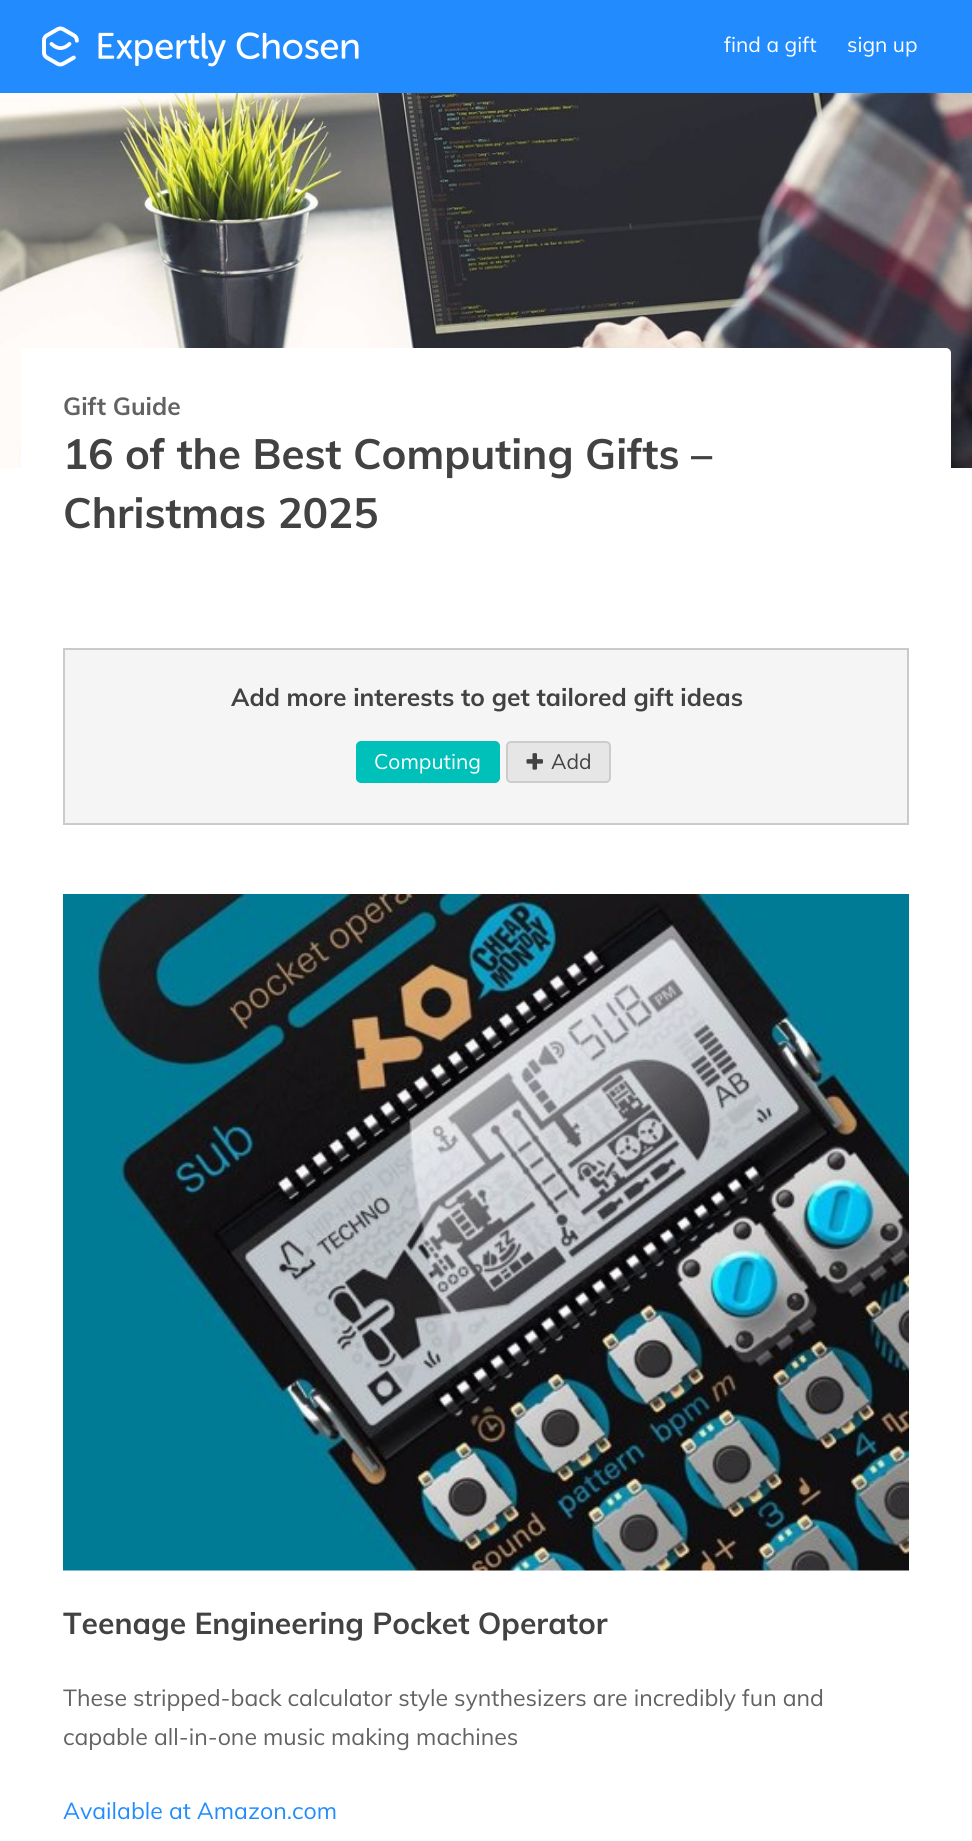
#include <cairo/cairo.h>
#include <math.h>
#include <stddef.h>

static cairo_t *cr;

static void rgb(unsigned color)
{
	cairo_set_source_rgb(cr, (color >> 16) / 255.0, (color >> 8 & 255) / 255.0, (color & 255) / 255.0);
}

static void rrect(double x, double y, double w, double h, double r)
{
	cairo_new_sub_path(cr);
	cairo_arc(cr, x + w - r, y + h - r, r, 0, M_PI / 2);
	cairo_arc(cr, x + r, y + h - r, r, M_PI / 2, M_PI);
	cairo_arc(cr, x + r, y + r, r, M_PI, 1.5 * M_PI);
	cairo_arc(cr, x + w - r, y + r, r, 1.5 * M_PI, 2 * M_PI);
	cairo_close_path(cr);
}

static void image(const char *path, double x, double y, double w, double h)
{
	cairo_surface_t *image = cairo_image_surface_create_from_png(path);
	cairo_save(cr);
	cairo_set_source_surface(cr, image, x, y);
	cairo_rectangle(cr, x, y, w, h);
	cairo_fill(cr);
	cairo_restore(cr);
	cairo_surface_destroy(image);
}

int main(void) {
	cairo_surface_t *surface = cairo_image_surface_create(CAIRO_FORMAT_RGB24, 972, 1841);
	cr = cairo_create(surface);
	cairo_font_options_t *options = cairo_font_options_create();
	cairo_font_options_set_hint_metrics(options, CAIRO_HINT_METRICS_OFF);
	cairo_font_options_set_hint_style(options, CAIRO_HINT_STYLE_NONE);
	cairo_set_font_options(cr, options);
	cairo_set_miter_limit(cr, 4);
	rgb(0xffffff);
	cairo_paint(cr);
	rgb(0x228cff);
	cairo_rectangle(cr, 0, 0, 972, 93);
	cairo_fill(cr);
	image("img/1.png", 42, 26, 317, 41);
	image("img/2.png", 0, 93, 972, 375);
	rgb(0xffffff);
	rrect(21, 348, 930, 267, 5);
	cairo_fill(cr);
	rgb(0xf5f5f5);
	cairo_rectangle(cr, 64, 649, 844, 175);
	cairo_fill_preserve(cr);
	rgb(0xcacaca);
	cairo_stroke(cr);
	rgb(0x00c0ba);
	rrect(357, 742, 142, 40, 4);
	cairo_fill_preserve(cr);
	cairo_stroke(cr);
	rgb(0xe6e6e6);
	rrect(507, 742, 103, 40, 4);
	cairo_fill_preserve(cr);
	rgb(0xcccccc);
	cairo_stroke(cr);
	image("img/3.png", 526, 753, 17, 17);
	image("img/4.png", 63, 894, 846, 677);
	cairo_select_font_face(cr, "Muli", CAIRO_FONT_SLANT_NORMAL, CAIRO_FONT_WEIGHT_NORMAL);
	cairo_set_font_size(cr, 21);
	rgb(0xffffff);
	cairo_move_to(cr, 724, 52);
	cairo_show_text(cr, "find a gift");
	cairo_move_to(cr, 847, 52);
	cairo_show_text(cr, "sign up");
	cairo_select_font_face(cr, "Muli", CAIRO_FONT_SLANT_NORMAL, CAIRO_FONT_WEIGHT_BOLD);
	cairo_set_font_size(cr, 24.6);
	rgb(0x626262);
	cairo_move_to(cr, 63, 415);
	cairo_show_text(cr, "Gift Guide");
	cairo_set_font_size(cr, 42);
	rgb(0x424242);
	cairo_move_to(cr, 63, 469);
	cairo_show_text(cr, "16 of the Best Computing Gifts –");
	cairo_move_to(cr, 63, 528);
	cairo_show_text(cr, "Christmas 2025");
	cairo_set_font_size(cr, 24.6);
	cairo_move_to(cr, 231, 706);
	cairo_show_text(cr, "Add more interests to get tailored gift ideas");
	cairo_select_font_face(cr, "Muli", CAIRO_FONT_SLANT_NORMAL, CAIRO_FONT_WEIGHT_NORMAL);
	cairo_set_font_size(cr, 21);
	rgb(0xffffff);
	cairo_move_to(cr, 374, 769);
	cairo_show_text(cr, "Computing");
	rgb(0x424242);
	cairo_move_to(cr, 551, 769);
	cairo_show_text(cr, "Add");
	cairo_select_font_face(cr, "Muli", CAIRO_FONT_SLANT_NORMAL, CAIRO_FONT_WEIGHT_BOLD);
	cairo_set_font_size(cr, 30);
	cairo_move_to(cr, 63, 1634);
	cairo_show_text(cr, "Teenage Engineering Pocket Operator");
	cairo_select_font_face(cr, "Muli", CAIRO_FONT_SLANT_NORMAL, CAIRO_FONT_WEIGHT_NORMAL);
	cairo_set_font_size(cr, 23.1);
	rgb(0x626262);
	cairo_move_to(cr, 63, 1706);
	cairo_show_text(cr, "These stripped-back calculator style synthesizers are incredibly fun and");
	cairo_move_to(cr, 63, 1745);
	cairo_show_text(cr, "capable all-in-one music making machines");
	rgb(0x228cff);
	cairo_move_to(cr, 63, 1819);
	cairo_show_text(cr, "Available at Amazon.com");
	cairo_surface_write_to_png(surface, "page.png");
	cairo_font_options_destroy(options);
	cairo_destroy(cr);
	cairo_surface_destroy(surface);
	return 0;
}
